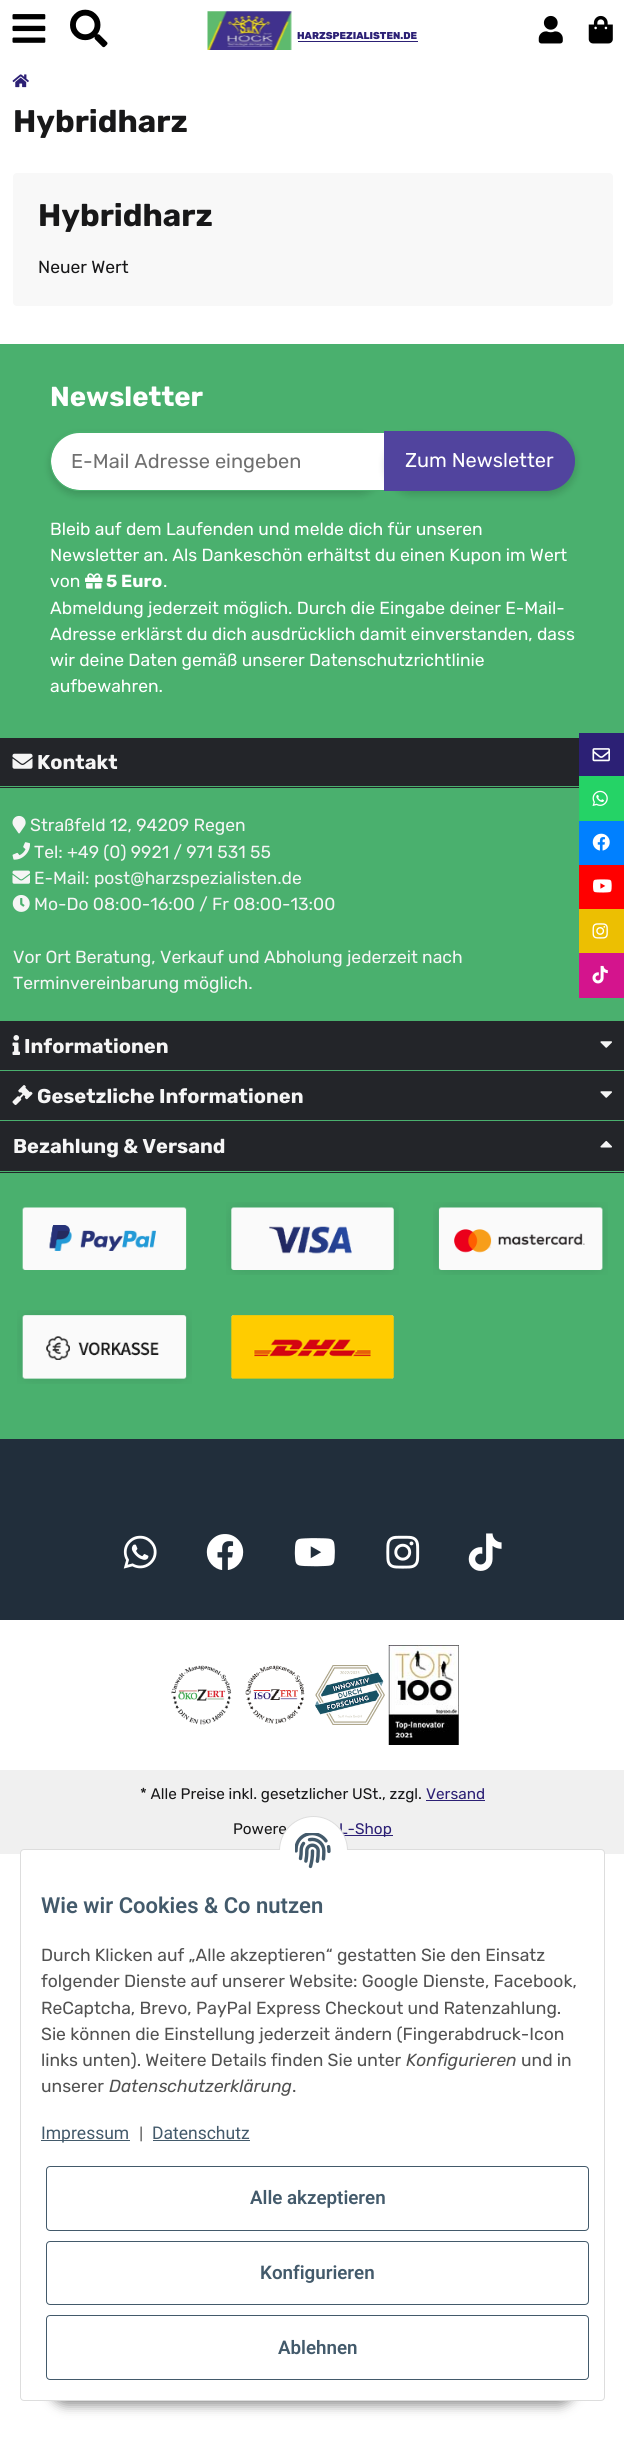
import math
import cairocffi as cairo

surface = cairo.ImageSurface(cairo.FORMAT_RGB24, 624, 2441)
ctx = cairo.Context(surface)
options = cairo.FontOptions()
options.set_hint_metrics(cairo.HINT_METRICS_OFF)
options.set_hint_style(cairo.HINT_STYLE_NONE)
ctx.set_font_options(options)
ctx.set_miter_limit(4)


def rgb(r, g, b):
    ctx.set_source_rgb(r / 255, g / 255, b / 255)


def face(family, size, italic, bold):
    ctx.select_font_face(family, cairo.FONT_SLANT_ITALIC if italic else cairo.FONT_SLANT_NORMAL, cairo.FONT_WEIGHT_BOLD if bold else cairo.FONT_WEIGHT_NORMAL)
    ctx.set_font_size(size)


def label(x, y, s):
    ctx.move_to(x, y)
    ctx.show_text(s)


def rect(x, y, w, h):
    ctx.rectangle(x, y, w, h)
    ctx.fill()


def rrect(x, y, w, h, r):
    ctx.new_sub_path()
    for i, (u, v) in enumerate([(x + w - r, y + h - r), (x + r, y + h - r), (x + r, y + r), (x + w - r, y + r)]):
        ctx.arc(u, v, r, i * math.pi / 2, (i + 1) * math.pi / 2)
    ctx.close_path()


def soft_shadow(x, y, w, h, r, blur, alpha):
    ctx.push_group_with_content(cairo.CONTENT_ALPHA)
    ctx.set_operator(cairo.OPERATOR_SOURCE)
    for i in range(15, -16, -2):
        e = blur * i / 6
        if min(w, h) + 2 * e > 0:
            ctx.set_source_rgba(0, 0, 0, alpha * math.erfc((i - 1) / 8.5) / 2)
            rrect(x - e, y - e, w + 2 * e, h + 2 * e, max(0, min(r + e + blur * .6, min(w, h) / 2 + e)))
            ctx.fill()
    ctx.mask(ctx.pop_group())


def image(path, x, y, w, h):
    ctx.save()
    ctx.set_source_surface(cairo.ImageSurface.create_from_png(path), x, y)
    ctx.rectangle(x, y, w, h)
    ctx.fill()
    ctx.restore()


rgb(255, 255, 255)
ctx.paint()
image('image0.png', 12, 14, 34, 29)
image('image1.png', 70, 9, 38, 39)
image('image2.png', 207, 11, 85, 39)
face('Rubik ExtraBold', 10, 0, 0)
rgb(44, 32, 117)
label(297, 39, 'HARZSPEZIALISTEN.DE')
rect(298, 41, 120, 1)
image('image3.png', 538, 15, 25, 29)
image('image4.png', 588, 15, 25, 29)
image('image5.png', 12, 74, 17, 14)
face('Rubik', 31.25, 0, 1)
rgb(24, 24, 25)
label(13, 132, 'Hybridharz')
rgb(248, 248, 248)
rrect(13, 173, 600, 133, 4)
ctx.fill()
rgb(24, 24, 25)
label(38, 226, 'Hybridharz')
face('Rubik', 17.5, 0, 0)
label(38, 273, 'Neuer Wert')
rgb(74, 176, 110)
rect(0, 344, 624, 394)
face('Rubik', 27.5, 0, 1)
rgb(255, 255, 255)
label(50, 406, 'Newsletter')
ctx.save()
ctx.set_fill_rule(cairo.FILL_RULE_EVEN_ODD)
ctx.new_path()
ctx.move_to(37, 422)
ctx.line_to(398, 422)
ctx.line_to(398, 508)
ctx.line_to(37, 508)
ctx.close_path()
ctx.move_to(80, 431)
ctx.line_to(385, 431)
ctx.line_to(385, 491)
ctx.line_to(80, 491)
ctx.curve_to(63.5, 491, 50, 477.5, 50, 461)
ctx.curve_to(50, 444.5, 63.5, 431, 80, 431)
ctx.close_path()
ctx.clip()
rgb(0, 0, 0)
soft_shadow(50, 435, 335, 60, 30, 4, 0.16)
ctx.restore()
ctx.new_path()
ctx.move_to(79.5, 433)
ctx.line_to(384, 433)
ctx.line_to(384, 490)
ctx.line_to(79.5, 490)
ctx.curve_to(64, 490, 51, 477, 51, 461.5)
ctx.curve_to(51, 446, 64, 433, 79.5, 433)
ctx.close_path()
ctx.fill()
ctx.new_path()
ctx.move_to(80, 431.5)
ctx.line_to(384.5, 431.5)
ctx.line_to(384.5, 490.5)
ctx.line_to(80, 490.5)
ctx.curve_to(63.5, 490.5, 50.5, 477.5, 50.5, 461)
ctx.curve_to(50.5, 444.5, 63.5, 431.5, 80, 431.5)
ctx.close_path()
rgb(74, 176, 110)
ctx.set_line_width(1)
ctx.stroke()
face('Rubik', 20, 0, 0)
rgb(112, 112, 112)
label(71, 468, 'E-Mail Adresse eingeben')
rgb(0, 0, 0)
soft_shadow(385, 435, 191, 60, 30, 4, 0.16)
rgb(81, 68, 158)
ctx.new_path()
ctx.move_to(384.5, 431.5)
ctx.line_to(545, 431.5)
ctx.curve_to(561.5, 431.5, 574.5, 444.5, 574.5, 461)
ctx.curve_to(574.5, 477.5, 561.5, 490.5, 545, 490.5)
ctx.line_to(384.5, 490.5)
ctx.close_path()
ctx.fill_preserve()
ctx.stroke()
rgb(255, 255, 255)
label(405, 467, 'Zum Newsletter')
face('Rubik', 17.5, 0, 0)
label(50, 535, 'Bleib auf dem Laufenden und melde dich für unseren')
label(50, 561, 'Newsletter an. Als Dankeschön erhältst du einen Kupon im Wert')
label(50, 587, 'von')
image('image6.png', 85, 573, 18, 16)
face('Rubik', 17.5, 0, 1)
label(106, 587, '5 Euro')
face('Rubik', 17.5, 0, 0)
label(163, 587, '.')
label(50, 614, 'Abmeldung jederzeit möglich. Durch die Eingabe deiner E-Mail-')
label(50, 640, 'Adresse erklärst du dich ausdrücklich damit einverstanden, dass')
label(50, 666, 'wir deine Daten gemäß unserer Datenschutzrichtlinie')
label(50, 692, 'aufbewahren.')
rgb(35, 37, 41)
rect(0, 738, 624, 435)
rgb(74, 176, 110)
rect(0, 786, 579, 1)
image('image7.png', 12, 753, 21, 16)
face('Rubik', 20, 0, 1)
rgb(245, 245, 245)
label(37, 769, 'Kontakt')
rgb(74, 176, 110)
rect(0, 788, 624, 233)
image('image8.png', 12, 815, 14, 19)
face('Rubik', 17.5, 0, 0)
rgb(245, 245, 245)
label(30, 831, 'Straßfeld 12, 94209 Regen')
image('image9.png', 12, 842, 18, 18)
label(34, 858, 'Tel: +49 (0) 9921 / 971 531 55')
image('image10.png', 12, 870, 18, 14)
label(34, 884, 'E-Mail: post@harzspezialisten.de')
image('image11.png', 12, 895, 18, 17)
label(34, 910, 'Mo-Do 08:00-16:00 / Fr 08:00-13:00')
label(13, 963, 'Vor Ort Beratung, Verkauf und Abholung jederzeit nach')
label(13, 989, 'Terminvereinbarung möglich.')
rgb(74, 176, 110)
rect(0, 1070, 624, 1)
image('image12.png', 12, 1035, 8, 20)
face('Rubik', 20, 0, 1)
rgb(245, 245, 245)
label(24, 1053, 'Informationen')
image('image13.png', 600, 1041, 12, 7)
rgb(74, 176, 110)
rect(0, 1120, 624, 1)
image('image14.png', 12, 1085, 21, 20)
rgb(245, 245, 245)
label(37, 1103, 'Gesetzliche Informationen')
image('image13.png', 600, 1091, 12, 7)
rgb(74, 176, 110)
rect(0, 1171, 624, 1)
rgb(245, 245, 245)
label(13, 1153, 'Bezahlung & Versand')
image('image15.png', 600, 1140, 12, 8)
rgb(74, 176, 110)
rect(0, 1173, 624, 266)
image('image16.png', 22, 1207, 165, 63)
image('image17.png', 226, 1202, 173, 73)
image('image18.png', 433, 1202, 175, 73)
image('image19.png', 17, 1310, 175, 74)
image('image20.png', 231, 1315, 163, 64)
rgb(44, 32, 117)
rect(579, 733, 45, 43)
image('image21.png', 592, 748, 18, 14)
rgb(37, 211, 102)
rect(579, 776, 45, 45)
image('image22.png', 592, 790, 16, 16)
rgb(0, 128, 255)
rect(579, 821, 45, 44)
image('image23.png', 592, 833, 18, 18)
rgb(255, 0, 0)
rect(579, 865, 45, 44)
image('image24.png', 593, 879, 19, 14)
rgb(236, 191, 2)
rect(579, 909, 45, 44)
image('image25.png', 592, 923, 16, 16)
rgb(212, 20, 141)
rect(579, 953, 45, 45)
image('image26.png', 592, 965, 16, 19)
rgb(33, 46, 59)
rect(0, 1439, 624, 181)
image('image27.png', 123, 1535, 34, 34)
image('image28.png', 206, 1534, 38, 36)
image('image29.png', 294, 1538, 41, 29)
image('image30.png', 386, 1535, 34, 34)
image('image31.png', 468, 1533, 34, 38)
image('image32.png', 171, 1665, 61, 60)
image('image33.png', 245, 1665, 60, 59)
image('image34.png', 315, 1665, 70, 60)
image('image35.png', 388, 1645, 71, 100)
rgb(240, 240, 240)
rect(0, 1770, 624, 84)
face('Rubik', 15.3, 0, 0)
rgb(24, 24, 25)
label(140, 1799, '* Alle Preise inkl. gesetzlicher USt., zzgl.')
rgb(44, 32, 117)
label(426, 1799, 'Versand')
rect(426, 1800, 59, 1)
rgb(24, 24, 25)
label(233, 1834, 'Powere')
rgb(44, 32, 117)
rect(344, 1835, 49, 1)
label(339, 1834, 'L-Shop')
rgb(0, 0, 0)
soft_shadow(50, 2365, 525, 40, 20, 6, 0.45)
rgb(255, 255, 255)
rrect(20.5, 1849.5, 584, 551, 3.5)
ctx.fill_preserve()
rgb(221, 221, 221)
ctx.stroke()
rgb(255, 255, 255)
ctx.arc(313.5, 1850.5, 34, 0, 2 * math.pi)
ctx.fill_preserve()
rgb(221, 221, 221)
ctx.stroke()
rgb(255, 255, 255)
rect(279, 1850, 69, 35)
image('image36.png', 295, 1833, 36, 36)
face('Roboto SemiBold', 22, 0, 0)
rgb(67, 90, 107)
label(41, 1913, 'Wie wir Cookies & Co nutzen')
face('Rubik', 17.5, 0, 0)
rgb(82, 82, 82)
label(41, 1961, 'Durch Klicken auf „Alle akzeptieren“ gestatten Sie den Einsatz')
label(41, 1987, 'folgender Dienste auf unserer Website: Google Dienste, Facebook,')
label(41, 2014, 'ReCaptcha, Brevo, PayPal Express Checkout und Ratenzahlung.')
label(41, 2040, 'Sie können die Einstellung jederzeit ändern (Fingerabdruck-Icon')
label(41, 2066, 'links unten). Weitere Details finden Sie unter')
face('Rubik', 17.5, 1, 0)
label(406, 2066, 'Konfigurieren')
face('Rubik', 17.5, 0, 0)
label(521, 2066, 'und in')
label(41, 2092, 'unserer')
face('Rubik', 17.5, 1, 0)
label(109, 2092, 'Datenschutzerklärung')
face('Rubik', 17.5, 0, 0)
label(292, 2092, '.')
rgb(67, 90, 107)
rect(41, 2140, 89, 1)
face('Roboto', 17.5, 0, 0)
label(41, 2139, 'Impressum')
rgb(82, 82, 82)
label(139, 2139, '|')
rgb(67, 90, 107)
label(152, 2139, 'Datenschutz')
rect(153, 2140, 97, 1)
rrect(46.5, 2166.5, 542, 64, 3.5)
ctx.stroke()
face('Roboto SemiBold', 18.75, 0, 0)
label(250, 2204, 'Alle akzeptieren')
rrect(46.5, 2241.5, 542, 63, 3.5)
ctx.stroke()
label(260, 2279, 'Konfigurieren')
rrect(46.5, 2315.5, 542, 64, 3.5)
ctx.stroke()
label(278, 2354, 'Ablehnen')
surface.write_to_png('render.png')
